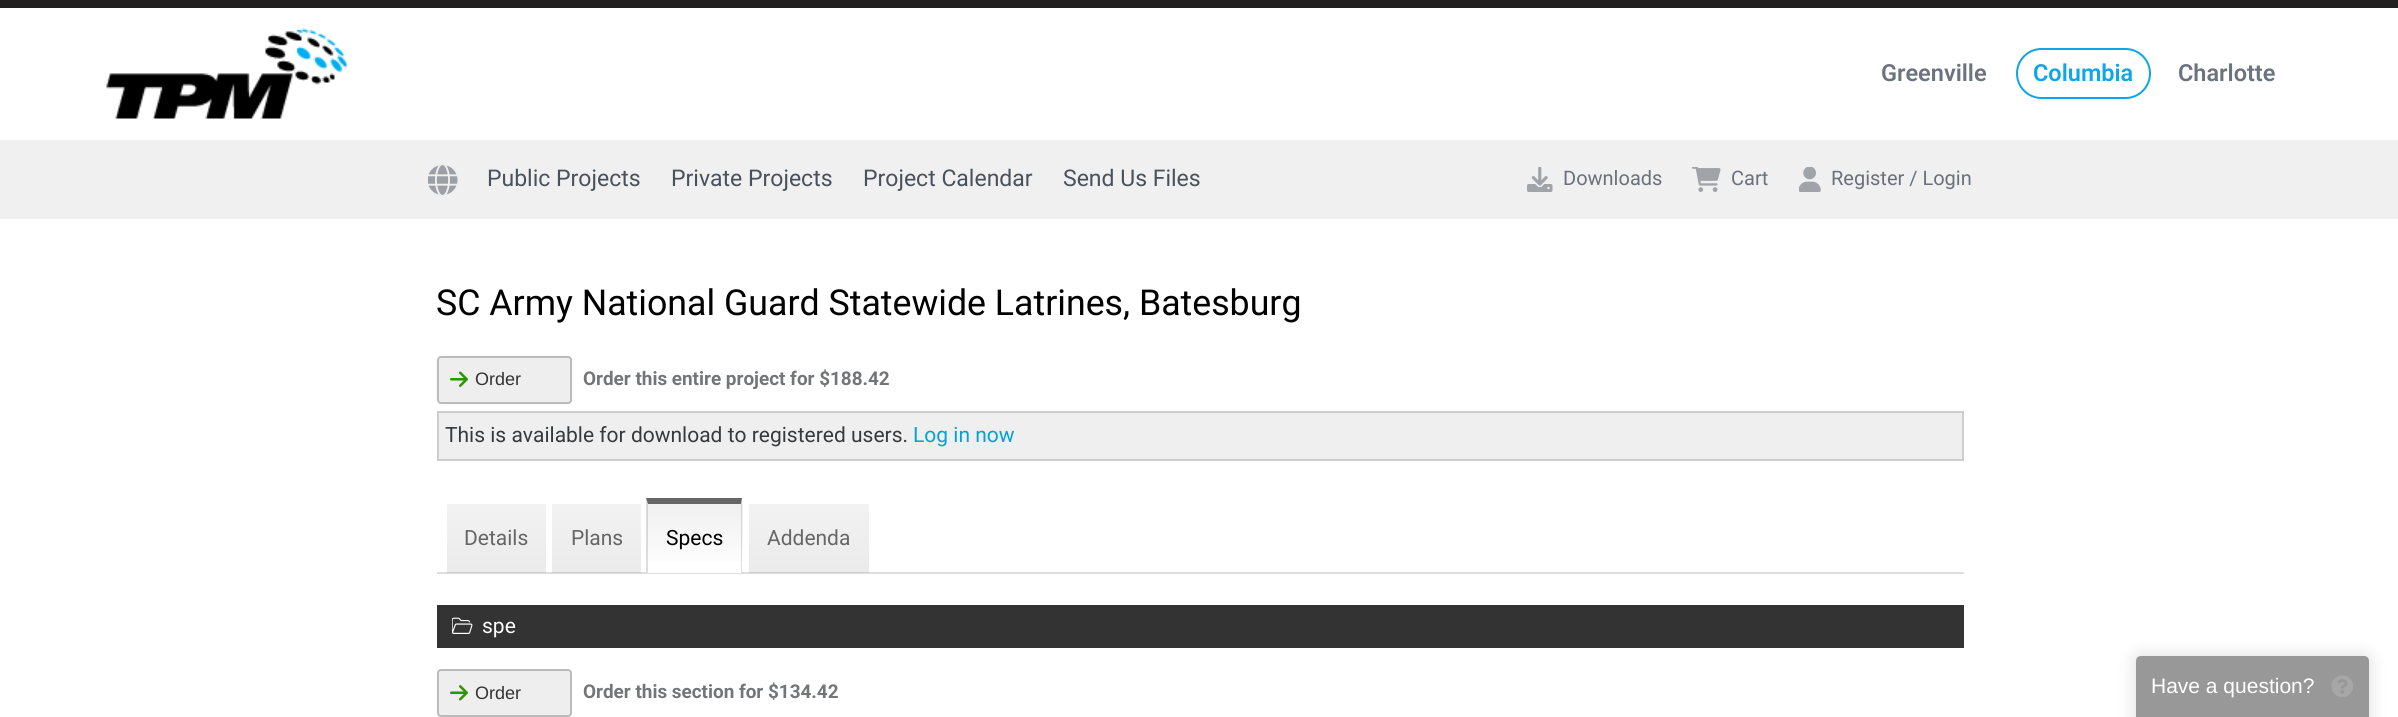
import math
import cairocffi as cairo

surface = cairo.ImageSurface(cairo.FORMAT_RGB24, 2398, 717)
ctx = cairo.Context(surface)
options = cairo.FontOptions()
options.set_hint_metrics(cairo.HINT_METRICS_OFF)
options.set_hint_style(cairo.HINT_STYLE_NONE)
ctx.set_font_options(options)
ctx.set_miter_limit(4)


def rgb(r, g, b):
    ctx.set_source_rgb(r / 255, g / 255, b / 255)


def face(family, size, italic, bold):
    ctx.select_font_face(family, cairo.FONT_SLANT_ITALIC if italic else cairo.FONT_SLANT_NORMAL, cairo.FONT_WEIGHT_BOLD if bold else cairo.FONT_WEIGHT_NORMAL)
    ctx.set_font_size(size)


def label(x, y, s):
    ctx.move_to(x, y)
    ctx.show_text(s)


def rect(x, y, w, h):
    ctx.rectangle(x, y, w, h)
    ctx.fill()


def rrect(x, y, w, h, r):
    ctx.new_sub_path()
    for i, (u, v) in enumerate([(x + w - r, y + h - r), (x + r, y + h - r), (x + r, y + r), (x + w - r, y + r)]):
        ctx.arc(u, v, r, i * math.pi / 2, (i + 1) * math.pi / 2)
    ctx.close_path()


def soft_shadow(x, y, w, h, r, blur, alpha):
    ctx.push_group_with_content(cairo.CONTENT_ALPHA)
    ctx.set_operator(cairo.OPERATOR_SOURCE)
    for i in range(15, -16, -2):
        e = blur * i / 6
        if min(w, h) + 2 * e > 0:
            ctx.set_source_rgba(0, 0, 0, alpha * math.erfc((i - 1) / 8.5) / 2)
            rrect(x - e, y - e, w + 2 * e, h + 2 * e, max(0, min(r + e + blur * .6, min(w, h) / 2 + e)))
            ctx.fill()
    ctx.mask(ctx.pop_group())


def image(path, x, y, w, h):
    ctx.save()
    ctx.set_source_surface(cairo.ImageSurface.create_from_png(path), x, y)
    ctx.rectangle(x, y, w, h)
    ctx.fill()
    ctx.restore()


rgb(255, 255, 255)
ctx.paint()
rgb(35, 31, 32)
rect(0, 0, 2398, 8)
image('image0.png', 106, 28, 241, 91)
face('Roboto SemiBold', 23.5, 0, 0)
rgb(107, 114, 128)
label(1881, 81, 'Greenville')
rrect(2017, 49, 133, 49, 24.5)
rgb(14, 165, 233)
ctx.stroke()
label(2033, 81, 'Columbia')
rgb(107, 114, 128)
label(2178, 81, 'Charlotte')
rgb(240, 240, 240)
rect(0, 140, 2398, 79)
image('image1.png', 428, 165, 30, 30)
face('Roboto', 23, 0, 0)
rgb(73, 81, 92)
label(487, 186, 'Public Projects')
label(671, 186, 'Private Projects')
label(863, 186, 'Project Calendar')
label(1063, 186, 'Send Us Files')
image('image2.png', 1527, 167, 26, 25)
face('Roboto', 20, 0, 0)
rgb(106, 113, 122)
label(1563, 185, 'Downloads')
image('image3.png', 1692, 167, 29, 25)
label(1731, 185, 'Cart')
image('image4.png', 1799, 167, 22, 25)
label(1831, 185, 'Register / Login')
face('Roboto', 35.7, 0, 0)
rgb(0, 0, 0)
label(436, 315, 'SC Army National Guard Statewide Latrines, Batesburg')
rgb(0, 0, 0)
soft_shadow(437, 356, 135, 48, 4, 1.5, 0.05)
rgb(238, 238, 238)
rrect(438, 357, 133, 46, 3)
ctx.fill_preserve()
rgb(187, 187, 187)
ctx.stroke()
image('image5.png', 450, 371, 18, 16)
face('Liberation Sans', 18, 0, 0)
rgb(51, 51, 51)
label(475, 385, 'Order')
face('Roboto', 18.9, 0, 1)
rgb(115, 117, 119)
label(583, 385, 'Order this entire project for $188.42')
rgb(239, 239, 239)
ctx.rectangle(438, 412, 1525, 48)
ctx.fill_preserve()
rgb(206, 206, 206)
ctx.stroke()
face('Roboto', 21, 0, 0)
rgb(55, 58, 60)
label(445, 442, 'This is available for download to registered users.')
rgb(0, 165, 213)
label(913, 442, 'Log in now')
rgb(222, 222, 222)
rect(437, 572, 1527, 2)
gradient = cairo.LinearGradient(497, 504, 497, 573)
gradient.add_color_stop_rgba(0, 0, 0, 0, 0.05)
gradient.add_color_stop_rgba(1, 0, 0, 0, 0.08)
ctx.set_source(gradient)
rect(447, 504, 99, 69)
rgb(102, 102, 102)
label(464, 545, 'Details')
gradient = cairo.LinearGradient(596, 504, 596, 573)
gradient.add_color_stop_rgba(0, 0, 0, 0, 0.05)
gradient.add_color_stop_rgba(1, 0, 0, 0, 0.08)
ctx.set_source(gradient)
rect(552, 504, 89, 69)
rgb(102, 102, 102)
label(571, 545, 'Plans')
gradient = cairo.LinearGradient(695, 504, 695, 572)
gradient.add_color_stop_rgba(0, 0.941, 0.941, 0.941, 1)
gradient.add_color_stop_rgba(1, 1, 1, 1, 1)
ctx.set_source(gradient)
rect(647, 504, 96, 57)
gradient = cairo.LinearGradient(695, 572, 695, 639)
gradient.add_color_stop_rgba(0, 0.82, 0.82, 0.82, 1)
gradient.add_color_stop_rgba(1, 0.871, 0.871, 0.871, 1)
ctx.set_source(gradient)
rect(647, 572, 96, 1)
rgb(102, 102, 102)
ctx.new_path()
ctx.move_to(646, 498)
ctx.line_to(742, 498)
ctx.line_to(741, 504)
ctx.line_to(648, 504)
ctx.close_path()
ctx.fill()
ctx.set_source_rgba(0, 0, 0, 0.13)
ctx.new_path()
ctx.move_to(742, 498)
ctx.line_to(742, 573)
ctx.line_to(741, 572)
ctx.line_to(741, 504)
ctx.close_path()
ctx.fill()
rgb(255, 255, 255)
ctx.new_path()
ctx.move_to(742, 573)
ctx.line_to(646, 573)
ctx.line_to(648, 572)
ctx.line_to(741, 572)
ctx.close_path()
ctx.fill()
ctx.set_source_rgba(0, 0, 0, 0.13)
ctx.new_path()
ctx.move_to(646, 573)
ctx.line_to(646, 498)
ctx.line_to(648, 504)
ctx.line_to(648, 572)
ctx.close_path()
ctx.fill()
rgb(0, 0, 0)
label(666, 545, 'Specs')
gradient = cairo.LinearGradient(809, 504, 809, 573)
gradient.add_color_stop_rgba(0, 0, 0, 0, 0.05)
gradient.add_color_stop_rgba(1, 0, 0, 0, 0.08)
ctx.set_source(gradient)
rect(749, 504, 120, 69)
rgb(102, 102, 102)
label(767, 545, 'Addenda')
rgb(51, 51, 51)
rect(437, 605, 1527, 43)
image('image6.png', 452, 617, 21, 17)
rgb(255, 255, 255)
label(482, 633, 'spe')
rgb(238, 238, 238)
rrect(438, 670, 133, 46, 3)
ctx.fill_preserve()
rgb(187, 187, 187)
ctx.stroke()
image('image7.png', 450, 685, 18, 16)
face('Liberation Sans', 18, 0, 0)
rgb(51, 51, 51)
label(475, 699, 'Order')
face('Roboto', 18.9, 0, 1)
rgb(115, 117, 119)
label(583, 698, 'Order this section for $134.42')
ctx.save()
ctx.set_fill_rule(cairo.FILL_RULE_EVEN_ODD)
ctx.new_path()
ctx.move_to(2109, 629)
ctx.line_to(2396, 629)
ctx.line_to(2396, 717)
ctx.line_to(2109, 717)
ctx.close_path()
ctx.move_to(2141, 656)
ctx.line_to(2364, 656)
ctx.curve_to(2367, 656, 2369, 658, 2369, 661)
ctx.line_to(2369, 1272)
ctx.line_to(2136, 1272)
ctx.line_to(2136, 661)
ctx.curve_to(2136, 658, 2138, 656, 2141, 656)
ctx.close_path()
ctx.clip()
rgb(0, 0, 0)
soft_shadow(2133, 653, 239, 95, 8, 7.5, 0.1)
ctx.restore()
ctx.set_source_rgba(0.2, 0.2, 0.2, 0.5)
ctx.new_path()
ctx.move_to(2141, 656)
ctx.line_to(2364, 656)
ctx.curve_to(2367, 656, 2369, 658, 2369, 661)
ctx.line_to(2369, 717)
ctx.line_to(2136, 717)
ctx.line_to(2136, 661)
ctx.curve_to(2136, 658, 2138, 656, 2141, 656)
ctx.close_path()
ctx.fill()
face('Liberation Sans', 21, 0, 0)
rgb(255, 255, 255)
label(2151, 693, 'Have a question?')
image('image8.png', 2331, 675, 22, 22)
surface.write_to_png('render.png')
